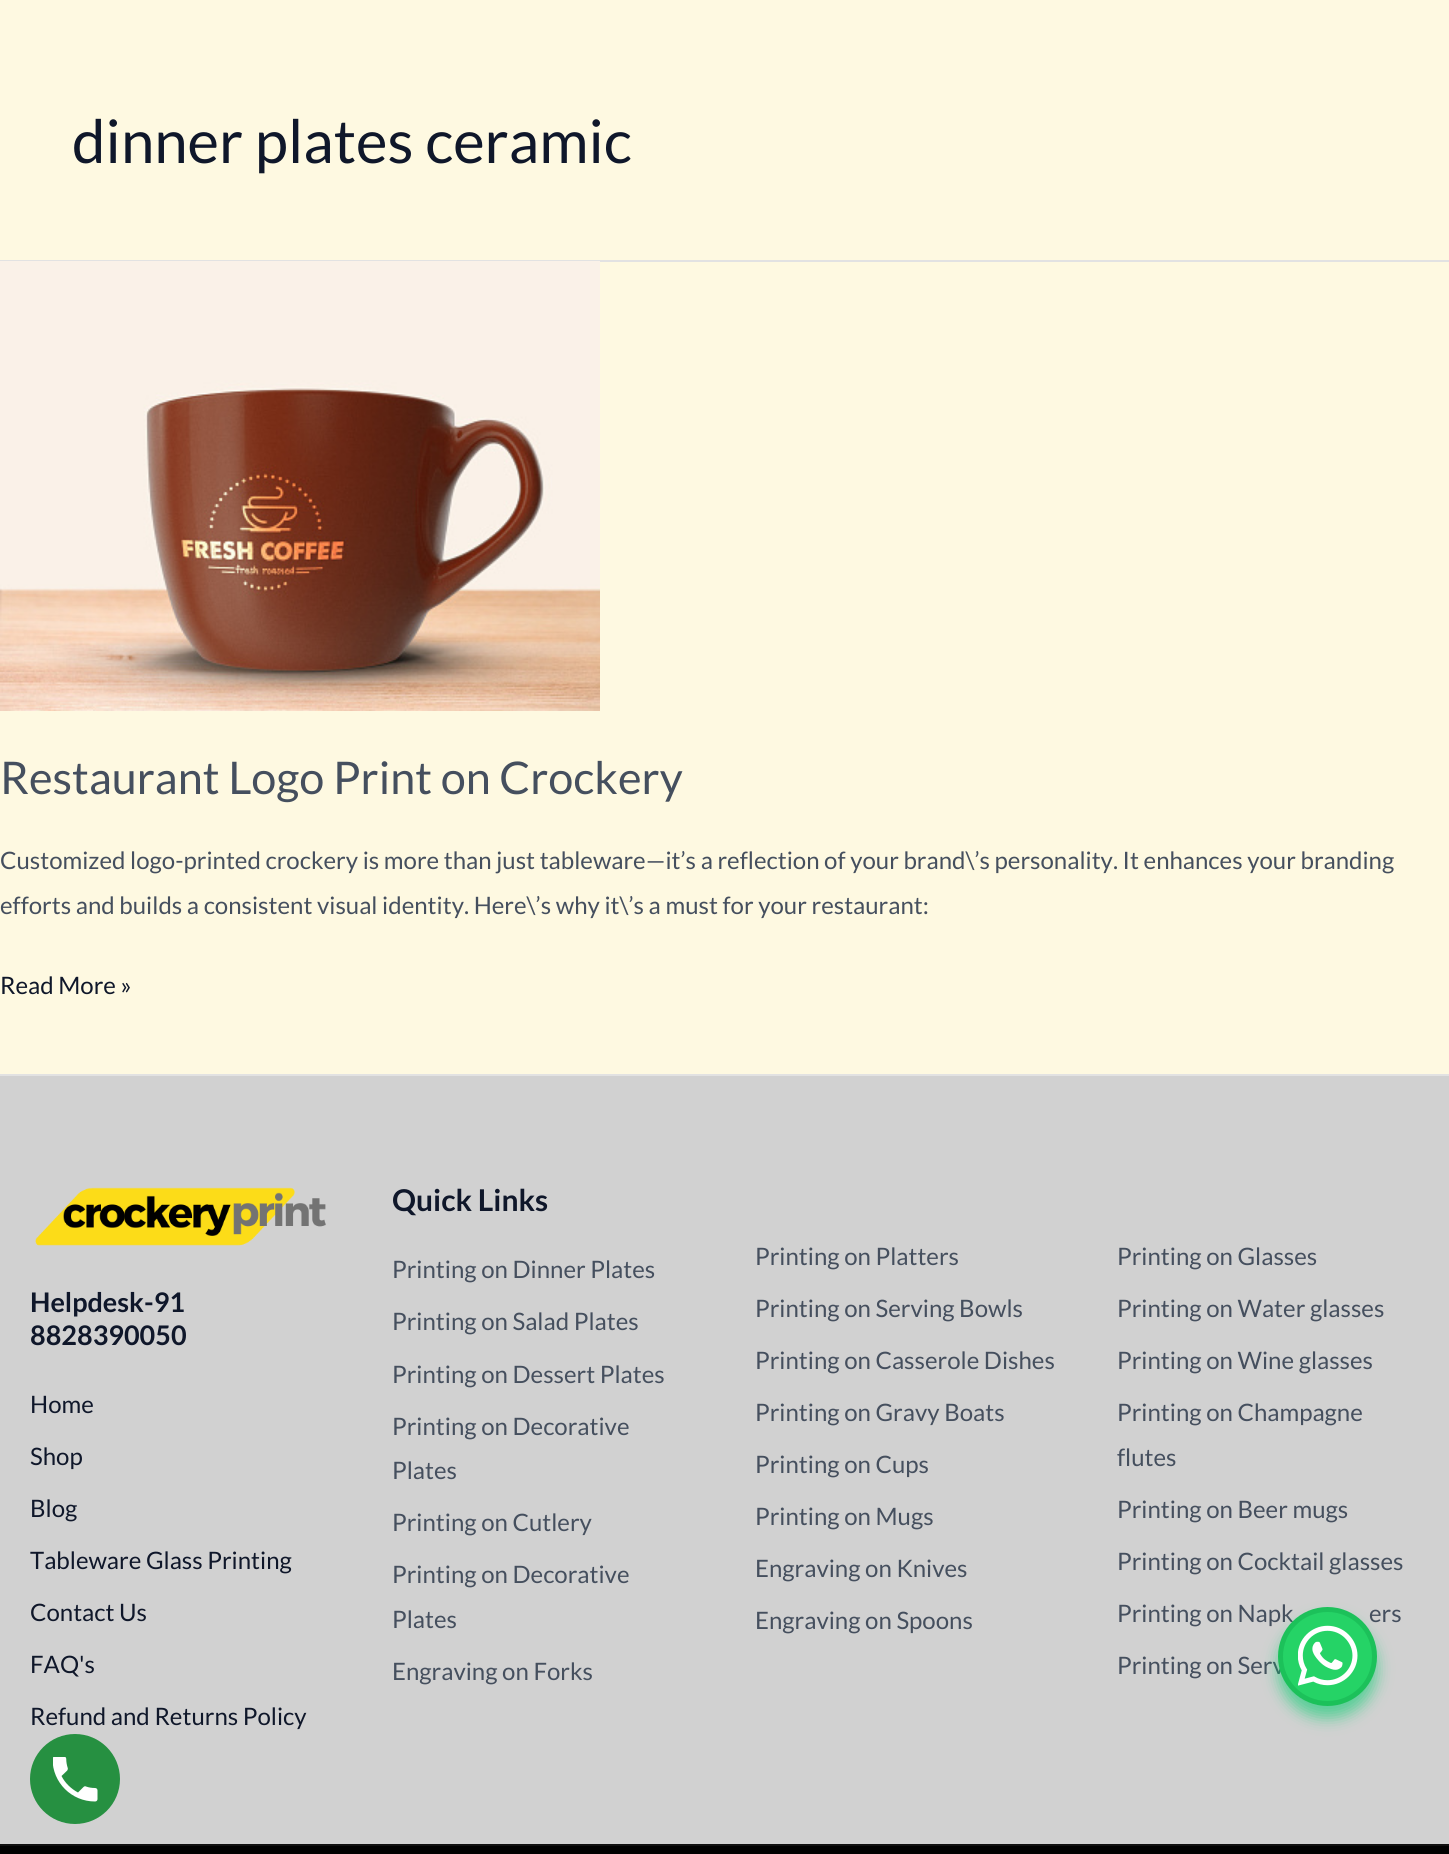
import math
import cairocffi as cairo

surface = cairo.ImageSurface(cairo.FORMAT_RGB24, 1449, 1854)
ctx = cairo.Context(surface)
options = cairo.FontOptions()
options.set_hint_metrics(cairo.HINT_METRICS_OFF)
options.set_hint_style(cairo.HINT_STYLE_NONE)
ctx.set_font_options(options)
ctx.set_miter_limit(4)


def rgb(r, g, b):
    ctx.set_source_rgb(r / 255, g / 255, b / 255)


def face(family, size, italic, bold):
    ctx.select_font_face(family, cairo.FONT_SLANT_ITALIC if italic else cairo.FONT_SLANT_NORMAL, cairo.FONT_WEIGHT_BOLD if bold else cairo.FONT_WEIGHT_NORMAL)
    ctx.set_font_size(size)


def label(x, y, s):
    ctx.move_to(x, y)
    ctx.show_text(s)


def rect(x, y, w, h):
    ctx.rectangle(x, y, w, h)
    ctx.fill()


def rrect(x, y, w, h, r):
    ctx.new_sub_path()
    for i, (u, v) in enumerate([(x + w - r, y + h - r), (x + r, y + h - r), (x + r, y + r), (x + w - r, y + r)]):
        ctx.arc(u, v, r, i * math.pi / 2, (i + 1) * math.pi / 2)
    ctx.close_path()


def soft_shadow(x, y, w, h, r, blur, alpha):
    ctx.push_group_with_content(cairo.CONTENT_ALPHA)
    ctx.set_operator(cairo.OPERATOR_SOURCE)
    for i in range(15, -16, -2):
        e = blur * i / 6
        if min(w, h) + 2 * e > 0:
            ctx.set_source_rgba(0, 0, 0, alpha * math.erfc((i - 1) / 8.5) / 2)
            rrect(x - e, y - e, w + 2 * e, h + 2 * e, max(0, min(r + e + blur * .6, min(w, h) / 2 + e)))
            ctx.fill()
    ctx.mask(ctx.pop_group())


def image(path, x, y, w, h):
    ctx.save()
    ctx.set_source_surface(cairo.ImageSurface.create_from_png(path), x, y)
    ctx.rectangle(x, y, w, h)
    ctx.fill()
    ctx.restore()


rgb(254, 249, 225)
ctx.paint()
rgb(226, 226, 226)
rect(0, 260, 1449, 2)
face('Lato', 60, 0, 0)
rgb(15, 23, 42)
label(72, 163, 'dinner plates ceramic')
rgb(226, 226, 226)
rect(0, 1074, 1449, 2)
image('image0.png', 0, 261, 600, 450)
face('Lato', 45, 0, 0)
rgb(69, 79, 94)
label(0, 794, 'Restaurant Logo Print on Crockery')
face('Lato', 24, 0, 0)
label(0, 869, 'Customized logo-printed crockery is more than just tableware—it’s a reflection of your brand\\’s personality. It enhances your branding')
label(0, 914, 'efforts and builds a consistent visual identity. Here\\’s why it\\’s a must for your restaurant:')
rgb(15, 23, 42)
label(0, 994, 'Read More »')
rgb(209, 209, 209)
rect(0, 1076, 1449, 768)
image('image1.png', 35, 1187, 291, 59)
face('Lato', 27, 0, 1)
rgb(15, 23, 42)
label(30, 1312, 'Helpdesk-91')
label(30, 1345, '8828390050')
face('Lato', 24, 0, 0)
label(30, 1413, 'Home')
label(30, 1465, 'Shop')
label(30, 1517, 'Blog')
label(30, 1569, 'Tableware Glass Printing')
label(30, 1621, 'Contact Us')
label(30, 1673, 'FAQ\'s')
label(30, 1725, 'Refund and Returns Policy')
face('Lato', 30, 0, 1)
label(392, 1211, 'Quick Links')
face('Lato', 24, 0, 0)
rgb(69, 79, 94)
label(392, 1278, 'Printing on Dinner Plates')
label(392, 1330, 'Printing on Salad Plates')
label(392, 1383, 'Printing on Dessert Plates')
label(392, 1435, 'Printing on Decorative')
label(392, 1479, 'Plates')
label(392, 1531, 'Printing on Cutlery')
label(392, 1583, 'Printing on Decorative')
label(392, 1628, 'Plates')
label(392, 1680, 'Engraving on Forks')
label(755, 1265, 'Printing on Platters')
label(755, 1317, 'Printing on Serving Bowls')
label(755, 1369, 'Printing on Casserole Dishes')
label(755, 1421, 'Printing on Gravy Boats')
label(755, 1473, 'Printing on Cups')
label(755, 1525, 'Printing on Mugs')
label(755, 1577, 'Engraving on Knives')
label(755, 1629, 'Engraving on Spoons')
label(1117, 1265, 'Printing on Glasses')
label(1117, 1317, 'Printing on Water glasses')
label(1117, 1369, 'Printing on Wine glasses')
label(1117, 1421, 'Printing on Champagne')
label(1117, 1466, 'flutes')
label(1117, 1518, 'Printing on Beer mugs')
label(1117, 1570, 'Printing on Cocktail glasses')
label(1117, 1622, 'Printing on Napk')
label(1369, 1622, 'ers')
label(1117, 1674, 'Printing on Serv')
rgb(0, 0, 0)
rect(0, 1846, 1449, 8)
rgb(16, 16, 16)
rect(0, 1844, 1449, 2)
rgb(7, 206, 112)
soft_shadow(1278, 1619, 99, 99, 49.5, 7.5, 0.6)
rgb(37, 211, 102)
ctx.arc(1327.5, 1656.5, 47, 0, 2 * math.pi)
ctx.fill_preserve()
rgb(28, 193, 90)
ctx.set_line_width(5)
ctx.stroke()
image('image2.png', 1298, 1625, 60, 61)
rgb(38, 144, 65)
ctx.arc(75, 1779, 45, 0, 2 * math.pi)
ctx.fill()
image('image3.png', 53, 1757, 45, 45)
surface.write_to_png('render.png')
